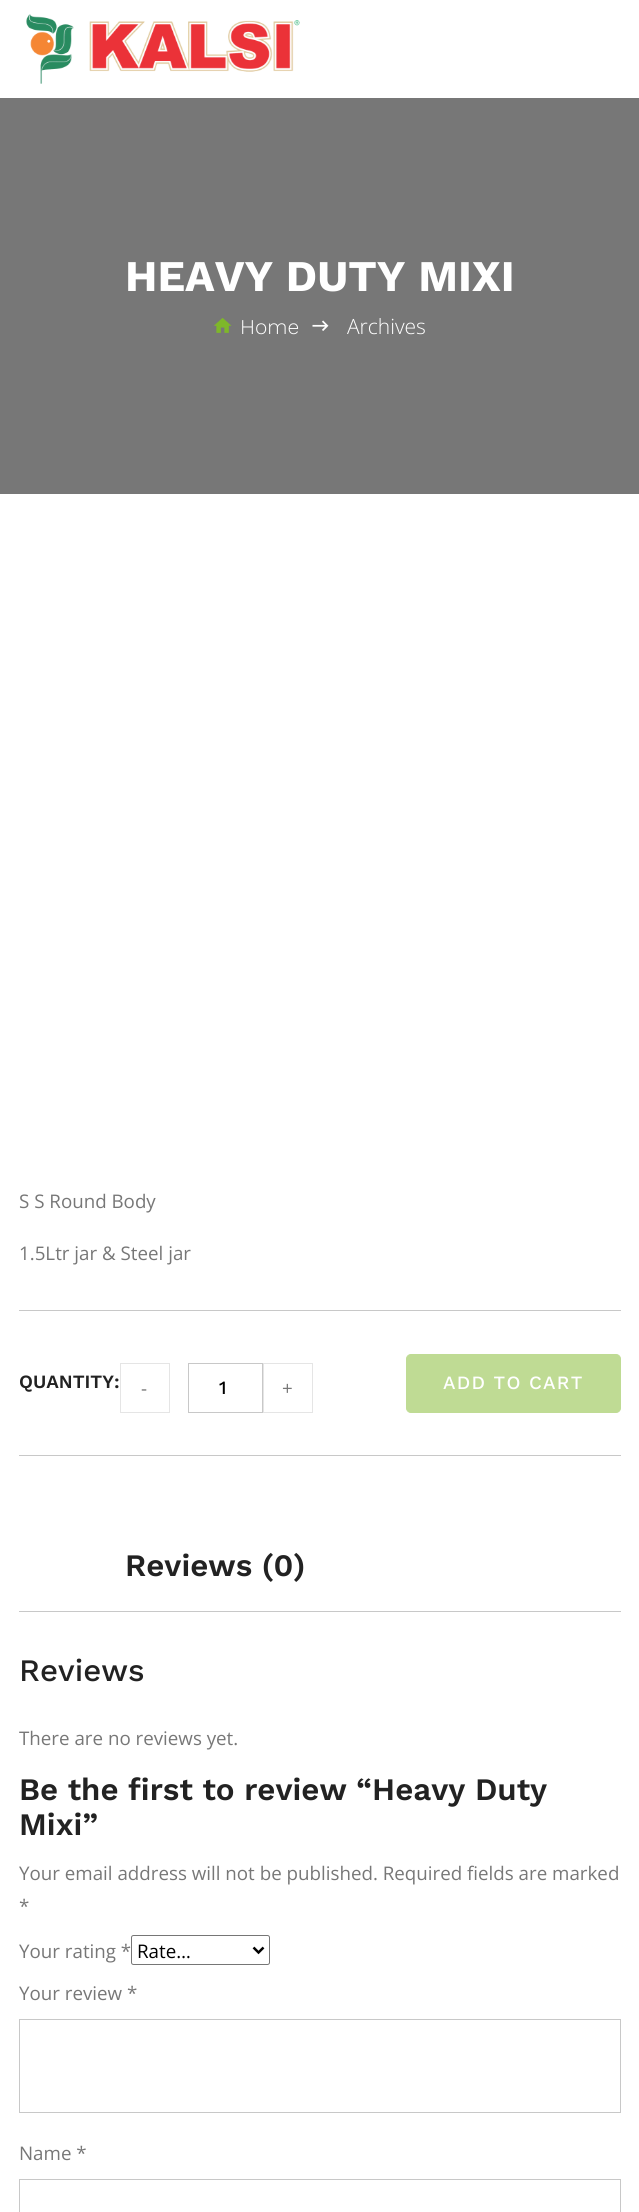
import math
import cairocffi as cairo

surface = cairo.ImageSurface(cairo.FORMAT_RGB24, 639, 2212)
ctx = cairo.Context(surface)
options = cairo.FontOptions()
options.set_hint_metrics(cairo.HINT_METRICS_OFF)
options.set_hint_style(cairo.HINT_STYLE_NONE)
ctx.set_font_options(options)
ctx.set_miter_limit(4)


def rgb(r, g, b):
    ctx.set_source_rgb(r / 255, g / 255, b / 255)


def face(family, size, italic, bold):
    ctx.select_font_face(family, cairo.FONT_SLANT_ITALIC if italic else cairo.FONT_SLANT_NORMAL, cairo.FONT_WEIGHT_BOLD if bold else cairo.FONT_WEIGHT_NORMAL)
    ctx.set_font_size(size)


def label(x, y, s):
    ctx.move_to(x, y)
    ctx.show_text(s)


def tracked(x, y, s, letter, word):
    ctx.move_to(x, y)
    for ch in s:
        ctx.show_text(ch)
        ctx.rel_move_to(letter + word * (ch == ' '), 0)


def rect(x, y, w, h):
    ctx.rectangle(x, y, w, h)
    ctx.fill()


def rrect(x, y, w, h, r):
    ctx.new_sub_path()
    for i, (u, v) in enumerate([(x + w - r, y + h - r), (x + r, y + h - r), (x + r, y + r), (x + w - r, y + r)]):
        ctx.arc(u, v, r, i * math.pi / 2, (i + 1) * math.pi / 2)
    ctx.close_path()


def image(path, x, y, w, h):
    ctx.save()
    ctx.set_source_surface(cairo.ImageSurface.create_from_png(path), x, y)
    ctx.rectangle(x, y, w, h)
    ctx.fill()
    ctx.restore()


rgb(255, 255, 255)
ctx.paint()
image('image0.png', 26, 14, 274, 70)
rgb(119, 119, 119)
rect(0, 98, 639, 396)
face('Work Sans', 43.75, 0, 1)
rgb(255, 255, 255)
label(125, 291, 'HEAVY DUTY MIXI')
image('image1.png', 214, 318, 18, 15)
face('Work Sans Light', 21, 0, 0)
label(240, 334, 'Home')
image('image2.png', 312, 320, 17, 11)
face('Open Sans Light', 21, 0, 0)
label(347, 334, 'Archives')
face('Open Sans', 18.75, 0, 0)
rgb(119, 119, 119)
label(19, 1208, 'S S Round Body')
label(19, 1260, '1.5Ltr jar & Steel jar')
rgb(200, 200, 200)
rect(19, 1310, 602, 1)
rect(19, 1455, 602, 1)
face('Work Sans SemiBold', 18.75, 0, 0)
rgb(34, 34, 34)
label(19, 1388, 'QUANTITY:')
ctx.rectangle(120.5, 1363.5, 49, 49)
rgb(229, 229, 229)
ctx.set_line_width(1)
ctx.stroke()
face('Open Sans', 18.75, 0, 0)
rgb(119, 119, 119)
label(141, 1395, '-')
ctx.rectangle(188.5, 1363.5, 74, 49)
rgb(200, 200, 200)
ctx.stroke()
face('Work Sans Medium', 18.75, 0, 0)
rgb(0, 0, 0)
label(219, 1394, '1')
ctx.rectangle(263.5, 1363.5, 49, 49)
rgb(229, 229, 229)
ctx.stroke()
face('Open Sans', 18.75, 0, 0)
rgb(119, 119, 119)
label(282, 1395, '+')
rgb(191, 219, 148)
rrect(406.5, 1354.5, 214, 58, 4.5)
ctx.fill_preserve()
ctx.stroke()
face('Work Sans Medium', 18.75, 0, 0)
rgb(255, 255, 255)
tracked(443, 1389, 'ADD TO CART', 1.25, 0)
face('Work Sans SemiBold', 31.25, 0, 0)
rgb(34, 34, 34)
label(125, 1576, 'Reviews (0)')
rgb(200, 200, 200)
rect(19, 1611, 602, 1)
face('Work Sans Medium', 31.25, 0, 0)
rgb(34, 34, 34)
label(19, 1681, 'Reviews')
face('Open Sans', 18.75, 0, 0)
rgb(119, 119, 119)
label(19, 1745, 'There are no reviews yet.')
face('Work Sans SemiBold', 31.25, 0, 0)
rgb(34, 34, 34)
label(19, 1800, 'Be the first to review “Heavy Duty')
label(19, 1835, 'Mixi”')
face('Open Sans', 18.75, 0, 0)
rgb(119, 119, 119)
label(19, 1880, 'Your email address will not be published. Required fields are marked')
label(19, 1913, '*')
label(19, 1958, 'Your rating *')
rrect(131.5, 1935.5, 138, 29, 2)
rgb(118, 118, 118)
ctx.stroke()
ctx.new_path()
ctx.move_to(253.5, 1947.5)
ctx.line_to(258.5, 1952.5)
ctx.line_to(263.5, 1947.5)
rgb(0, 0, 0)
ctx.set_line_width(2.5)
ctx.stroke()
label(137, 1958, 'Rate…')
rgb(119, 119, 119)
label(19, 2000, 'Your review *')
ctx.rectangle(19.5, 2019.5, 601, 93)
rgb(200, 200, 200)
ctx.set_line_width(1)
ctx.stroke()
rgb(119, 119, 119)
label(19, 2160, 'Name *')
ctx.rectangle(19.5, 2179.5, 601, 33)
rgb(200, 200, 200)
ctx.stroke()
surface.write_to_png('render.png')
